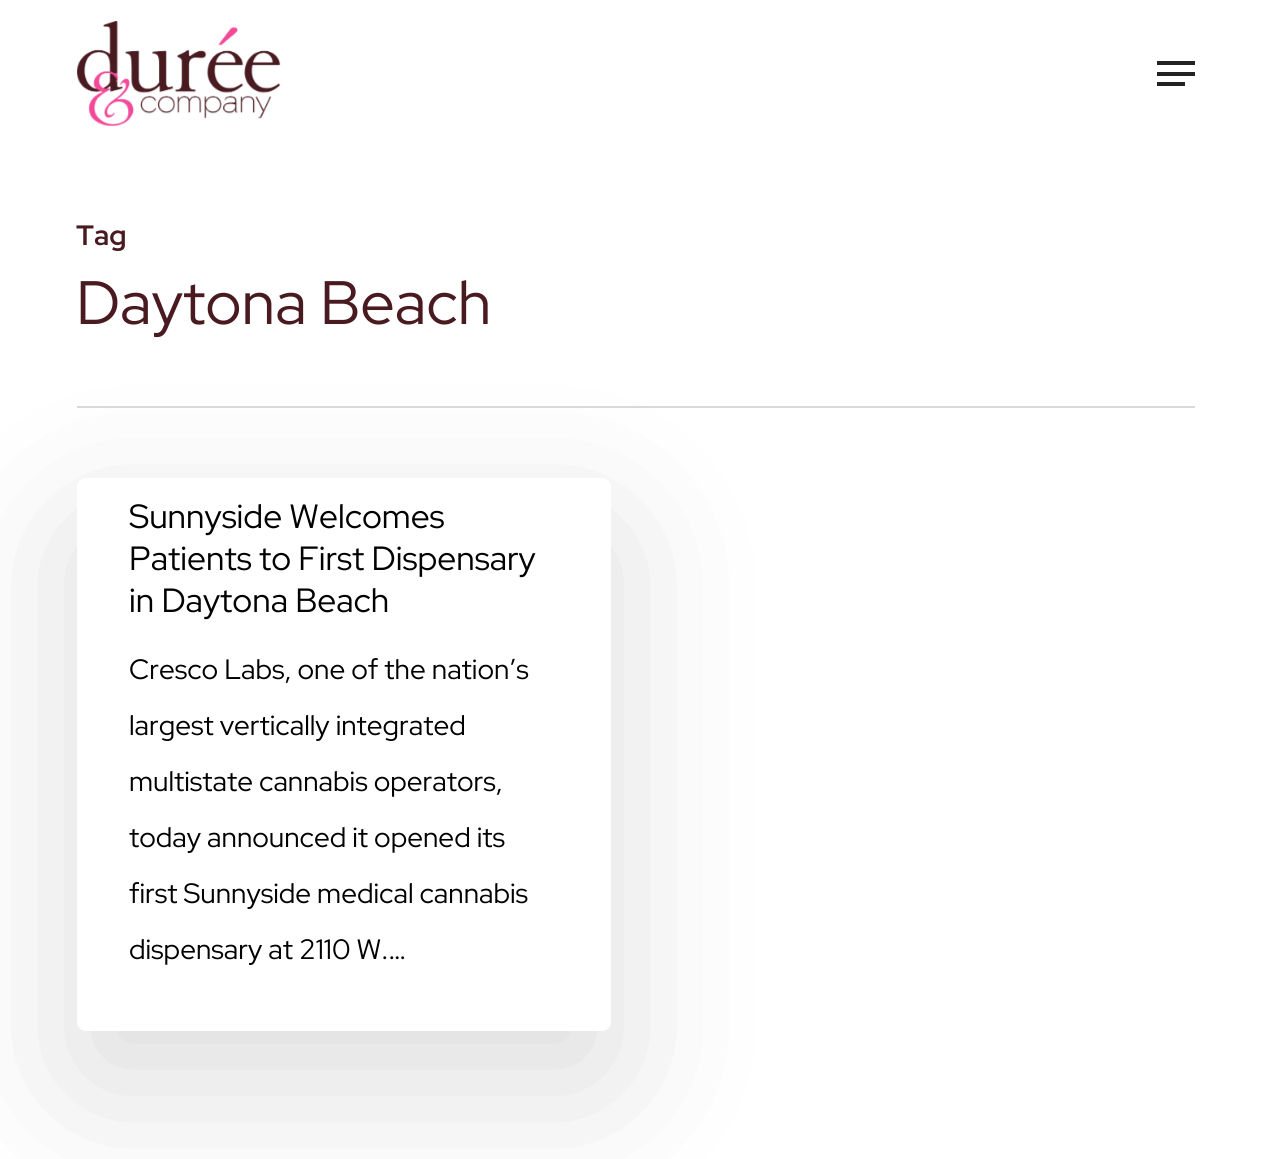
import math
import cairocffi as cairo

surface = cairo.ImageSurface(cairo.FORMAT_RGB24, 1271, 1159)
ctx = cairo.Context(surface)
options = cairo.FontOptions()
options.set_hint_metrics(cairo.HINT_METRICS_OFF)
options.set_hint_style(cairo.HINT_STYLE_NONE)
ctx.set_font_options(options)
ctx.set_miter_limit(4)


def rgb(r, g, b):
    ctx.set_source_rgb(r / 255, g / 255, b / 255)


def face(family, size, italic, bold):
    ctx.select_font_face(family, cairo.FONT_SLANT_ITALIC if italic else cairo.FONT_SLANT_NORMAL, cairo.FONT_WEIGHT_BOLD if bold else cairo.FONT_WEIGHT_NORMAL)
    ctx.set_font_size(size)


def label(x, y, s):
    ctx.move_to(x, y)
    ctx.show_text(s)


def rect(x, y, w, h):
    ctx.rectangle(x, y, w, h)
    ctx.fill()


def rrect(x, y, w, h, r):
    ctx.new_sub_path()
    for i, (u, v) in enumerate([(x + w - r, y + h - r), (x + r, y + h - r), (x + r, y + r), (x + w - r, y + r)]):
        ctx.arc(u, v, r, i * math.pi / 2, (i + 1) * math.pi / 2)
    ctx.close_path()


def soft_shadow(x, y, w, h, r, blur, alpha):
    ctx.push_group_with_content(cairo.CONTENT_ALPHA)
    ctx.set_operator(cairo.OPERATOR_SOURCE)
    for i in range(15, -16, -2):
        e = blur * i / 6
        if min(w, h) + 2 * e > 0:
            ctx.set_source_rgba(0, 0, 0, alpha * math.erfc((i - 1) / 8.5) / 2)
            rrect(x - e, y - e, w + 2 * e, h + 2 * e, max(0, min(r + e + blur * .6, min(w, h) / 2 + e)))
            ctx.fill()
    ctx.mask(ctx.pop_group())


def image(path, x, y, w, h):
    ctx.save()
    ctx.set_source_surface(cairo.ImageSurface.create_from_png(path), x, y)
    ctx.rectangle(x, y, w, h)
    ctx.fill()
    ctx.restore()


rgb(255, 255, 255)
ctx.paint()
image('image0.png', 77, 21, 204, 105)
rgb(34, 34, 34)
rect(1157, 61, 38, 4)
rect(1157, 82, 28, 4)
rect(1157, 72, 38, 4)
rgb(0, 0, 0)
soft_shadow(77, 530, 534, 553, 9, 79, 0.14)
rgb(217, 217, 217)
rect(77, 406, 1118, 2)
face('Red Hat Display', 28, 0, 1)
rgb(73, 27, 32)
label(76, 245, 'Tag')
face('Red Hat Display', 61.25, 0, 0)
label(76, 324, 'Daytona Beach')
rgb(255, 255, 255)
rrect(77, 478, 534, 553, 9)
ctx.fill()
face('Red Hat Display', 33.6, 0, 0)
rgb(0, 0, 0)
label(129, 528, 'Sunnyside Welcomes')
label(129, 570, 'Patients to First Dispensary')
label(129, 612, 'in Daytona Beach')
face('Red Hat Display', 28, 0, 0)
label(129, 679, 'Cresco Labs, one of the nation’s')
label(129, 735, 'largest vertically integrated')
label(129, 791, 'multistate cannabis operators,')
label(129, 847, 'today announced it opened its')
label(129, 903, 'first Sunnyside medical cannabis')
label(129, 959, 'dispensary at 2110 W.…')
surface.write_to_png('render.png')
